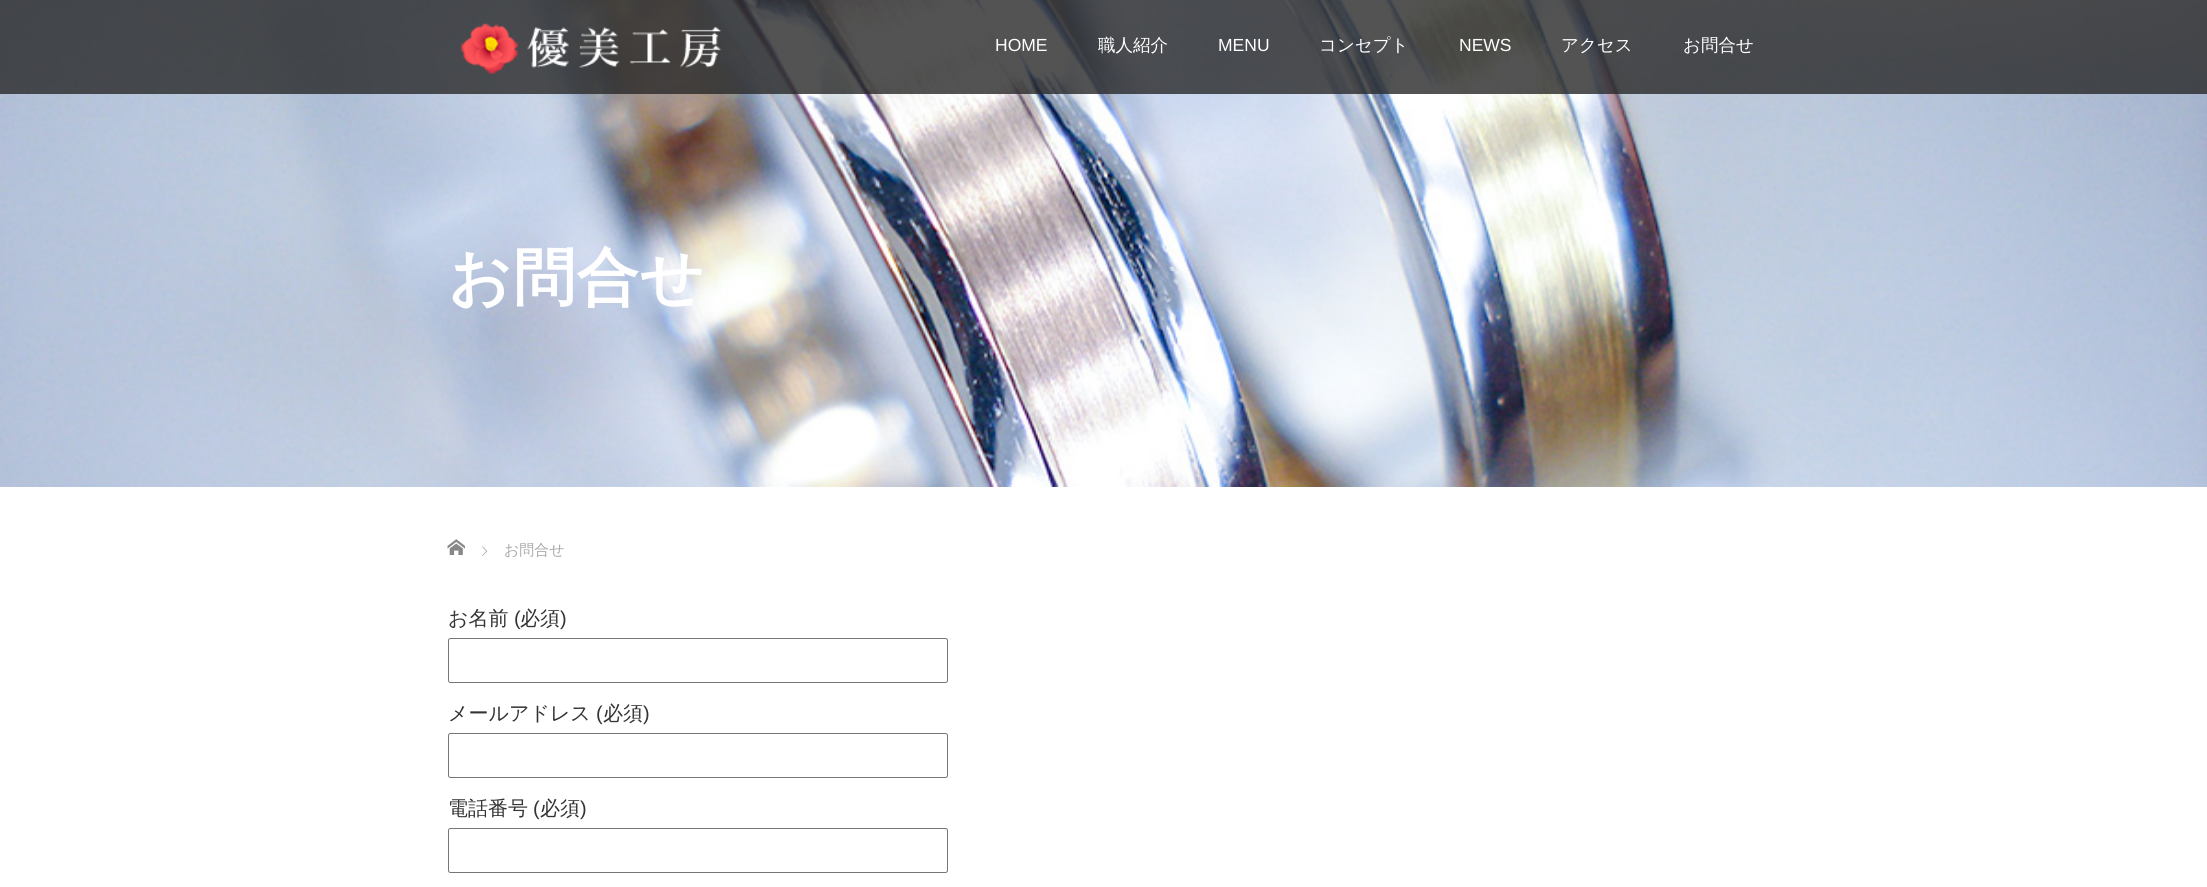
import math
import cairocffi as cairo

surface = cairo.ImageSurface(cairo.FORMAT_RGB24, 2207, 887)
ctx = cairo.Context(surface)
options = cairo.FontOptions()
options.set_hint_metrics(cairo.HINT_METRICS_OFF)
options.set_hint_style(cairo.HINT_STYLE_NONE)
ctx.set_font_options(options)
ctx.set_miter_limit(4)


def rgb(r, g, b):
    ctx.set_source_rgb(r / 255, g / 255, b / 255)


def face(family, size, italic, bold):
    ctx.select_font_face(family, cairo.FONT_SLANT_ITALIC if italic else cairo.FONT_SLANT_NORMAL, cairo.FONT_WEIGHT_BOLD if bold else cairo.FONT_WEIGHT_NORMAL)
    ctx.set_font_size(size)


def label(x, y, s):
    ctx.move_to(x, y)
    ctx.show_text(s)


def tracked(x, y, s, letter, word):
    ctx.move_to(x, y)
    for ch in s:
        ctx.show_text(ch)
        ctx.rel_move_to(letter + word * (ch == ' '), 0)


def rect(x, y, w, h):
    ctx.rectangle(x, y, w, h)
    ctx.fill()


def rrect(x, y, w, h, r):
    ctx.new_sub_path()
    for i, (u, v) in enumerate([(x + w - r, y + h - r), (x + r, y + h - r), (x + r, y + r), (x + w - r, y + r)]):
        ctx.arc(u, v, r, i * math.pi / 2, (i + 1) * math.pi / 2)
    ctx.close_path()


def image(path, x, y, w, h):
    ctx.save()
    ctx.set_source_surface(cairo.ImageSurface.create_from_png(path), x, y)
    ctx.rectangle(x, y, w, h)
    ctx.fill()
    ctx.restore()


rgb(255, 255, 255)
ctx.paint()
image('image0.png', 0, 0, 2207, 487)
ctx.set_source_rgba(0.157, 0.157, 0.157, 0.8)
rect(0, 0, 2207, 94)
image('image1.png', 461, 23, 261, 51)
face('Liberation Sans', 17.5, 0, 0)
rgb(255, 255, 255)
label(995, 51, 'HOME')
face('WenQuanYi Zen Hei Medium', 17.5, 0, 0)
label(1098, 51, '職人紹介')
face('Liberation Sans', 17.5, 0, 0)
label(1218, 51, 'MENU')
face('WenQuanYi Zen Hei Medium', 17.5, 0, 0)
label(1319, 51, 'コンセプト')
face('Liberation Sans', 17.5, 0, 0)
label(1459, 51, 'NEWS')
face('WenQuanYi Zen Hei Medium', 17.5, 0, 0)
label(1561, 51, 'アクセス')
label(1683, 51, 'お問合せ')
face('WenQuanYi Zen Hei', 62.5, 0, 1)
tracked(448, 299, 'お問合せ', 1, 0)
image('image2.png', 447, 539, 18, 16)
image('image3.png', 482, 546, 6, 10)
face('WenQuanYi Zen Hei Medium', 15, 0, 0)
rgb(170, 170, 170)
label(504, 555, 'お問合せ')
face('WenQuanYi Zen Hei Medium', 20, 0, 0)
rgb(51, 51, 51)
label(448, 625, 'お名前')
face('Liberation Sans', 20, 0, 0)
label(514, 625, '(')
face('WenQuanYi Zen Hei Medium', 20, 0, 0)
label(520, 625, '必須')
face('Liberation Sans', 20, 0, 0)
label(560, 625, ')')
rrect(448.5, 638.5, 499, 44, 2)
rgb(118, 118, 118)
ctx.set_line_width(1)
ctx.stroke()
face('WenQuanYi Zen Hei Medium', 20, 0, 0)
rgb(51, 51, 51)
label(448, 720, 'メールアドレス')
face('Liberation Sans', 20, 0, 0)
label(596, 720, '(')
face('WenQuanYi Zen Hei Medium', 20, 0, 0)
label(603, 720, '必須')
face('Liberation Sans', 20, 0, 0)
label(643, 720, ')')
rrect(448.5, 733.5, 499, 44, 2)
rgb(118, 118, 118)
ctx.stroke()
face('WenQuanYi Zen Hei Medium', 20, 0, 0)
rgb(51, 51, 51)
label(448, 815, '電話番号')
face('Liberation Sans', 20, 0, 0)
label(533, 815, '(')
face('WenQuanYi Zen Hei Medium', 20, 0, 0)
label(540, 815, '必須')
face('Liberation Sans', 20, 0, 0)
label(580, 815, ')')
rrect(448.5, 828.5, 499, 44, 2)
rgb(118, 118, 118)
ctx.stroke()
surface.write_to_png('render.png')
